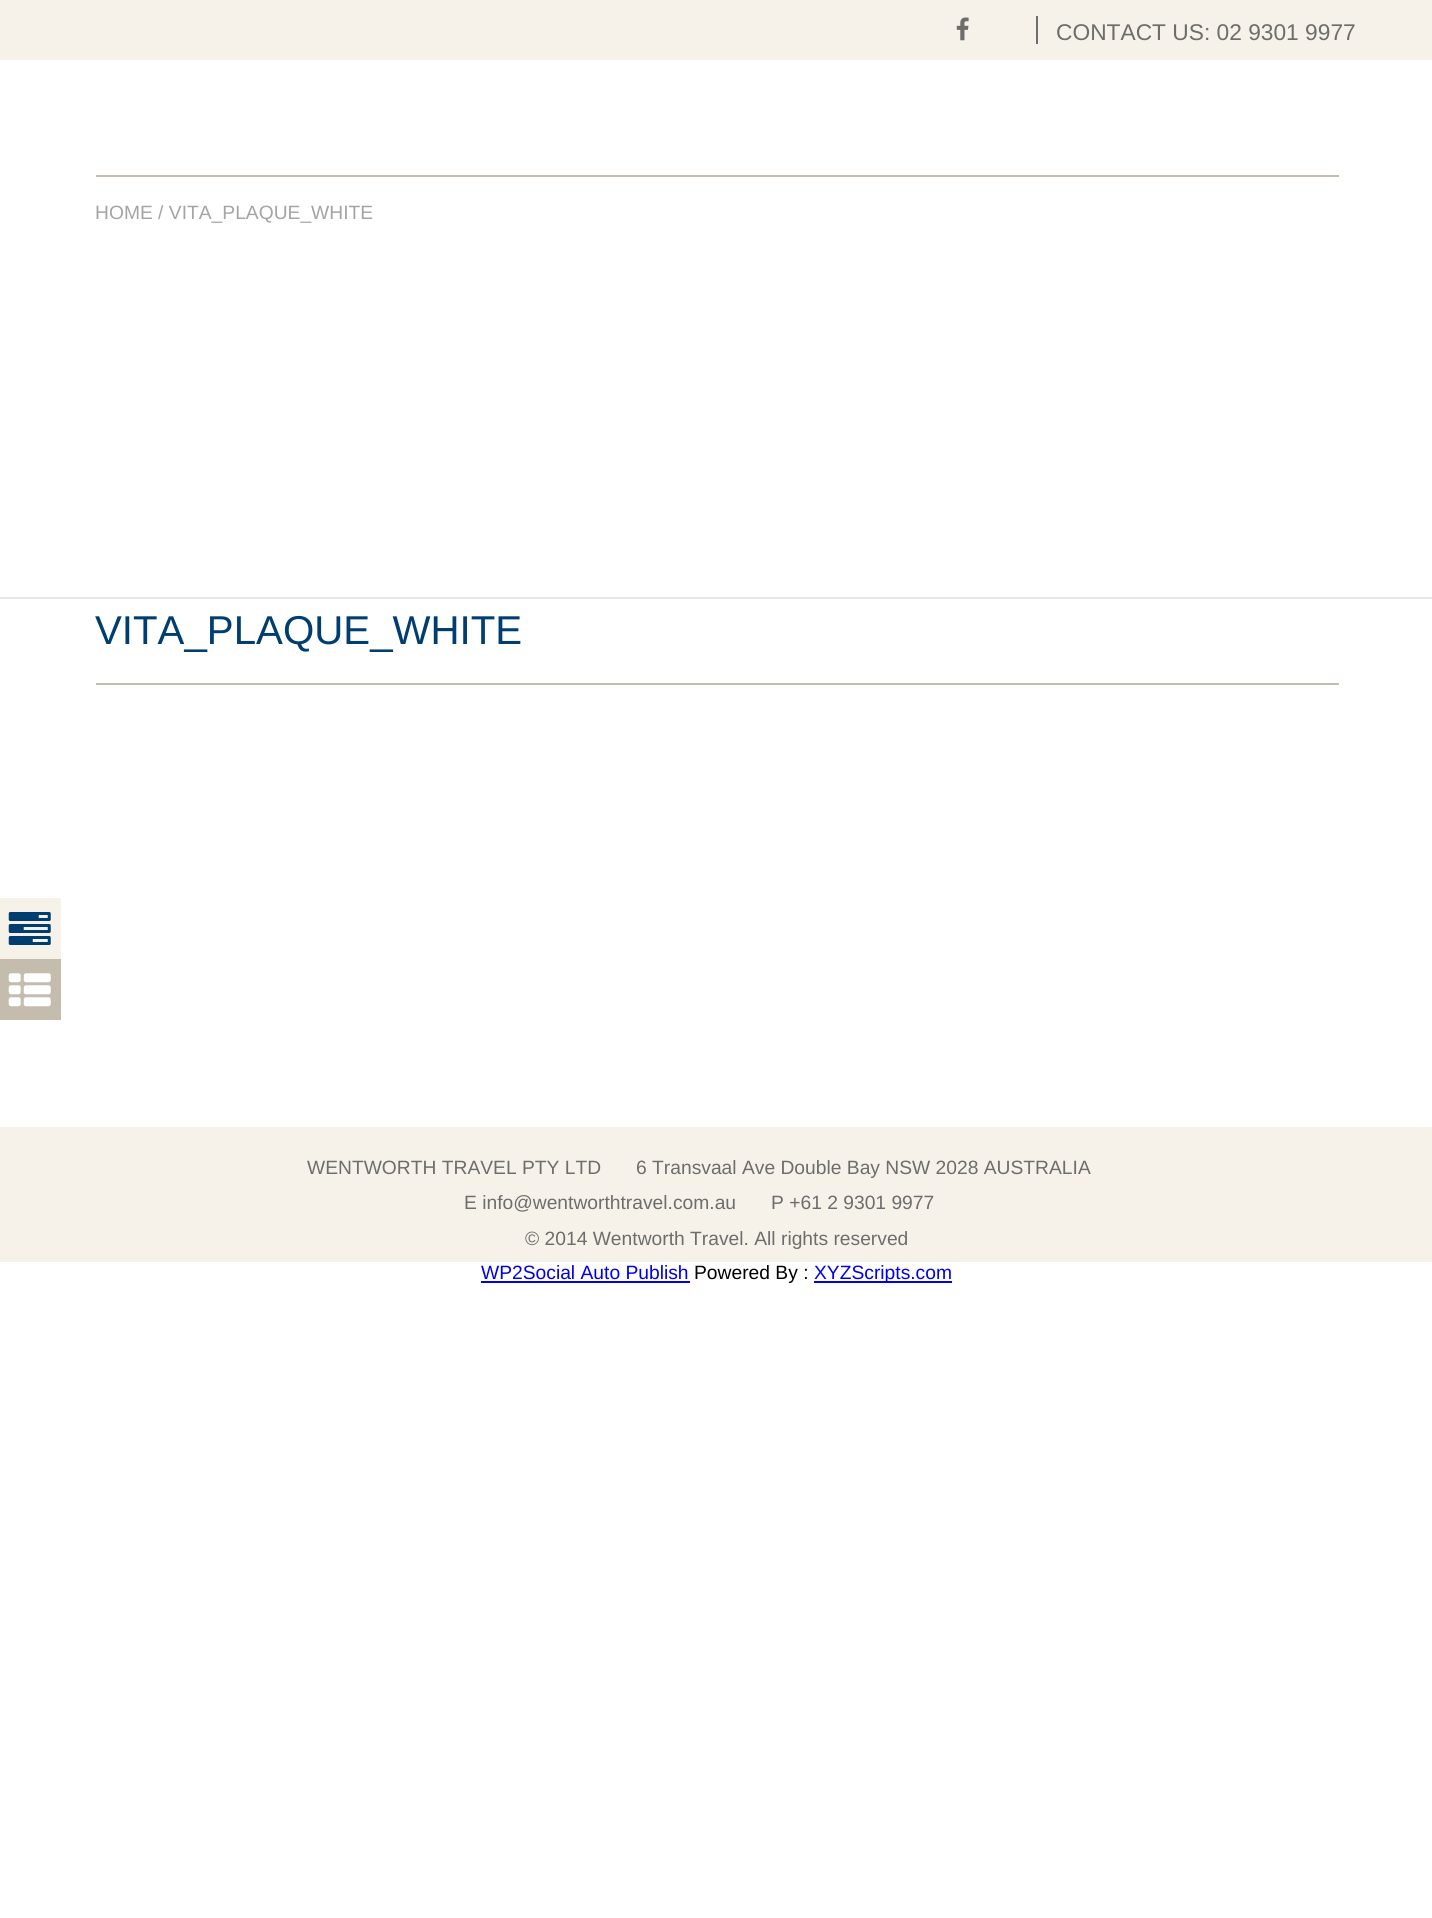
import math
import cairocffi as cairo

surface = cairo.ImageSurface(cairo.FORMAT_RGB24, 1432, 1918)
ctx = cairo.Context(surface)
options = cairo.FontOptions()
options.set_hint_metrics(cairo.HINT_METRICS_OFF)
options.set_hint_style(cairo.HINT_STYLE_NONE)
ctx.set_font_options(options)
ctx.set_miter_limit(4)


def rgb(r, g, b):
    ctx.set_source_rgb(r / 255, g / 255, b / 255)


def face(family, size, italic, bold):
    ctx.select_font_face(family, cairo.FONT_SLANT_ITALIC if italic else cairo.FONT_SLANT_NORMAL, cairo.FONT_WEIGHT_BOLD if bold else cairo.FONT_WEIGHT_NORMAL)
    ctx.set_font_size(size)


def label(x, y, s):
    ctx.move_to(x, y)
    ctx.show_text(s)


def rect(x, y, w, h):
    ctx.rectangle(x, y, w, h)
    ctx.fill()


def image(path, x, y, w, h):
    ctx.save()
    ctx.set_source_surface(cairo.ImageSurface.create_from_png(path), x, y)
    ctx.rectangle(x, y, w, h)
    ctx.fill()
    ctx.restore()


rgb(255, 255, 255)
ctx.paint()
rgb(246, 242, 234)
rect(0, 0, 1432, 60)
rgb(109, 109, 108)
rect(1036, 16, 2, 28)
image('image0.png', 956, 17, 13, 24)
face('Liberation Sans', 22.75, 0, 0)
label(1056, 40, 'CONTACT US: 02 9301 9977')
rgb(246, 242, 234)
rect(0, 898, 61, 61)
image('image1.png', 8, 912, 43, 33)
rgb(196, 188, 173)
rect(96, 175, 1243, 2)
face('Liberation Sans', 19.25, 0, 0)
rgb(163, 164, 163)
label(95, 219, 'HOME / VITA_PLAQUE_WHITE')
rgb(230, 231, 232)
rect(0, 597, 1432, 2)
rgb(196, 188, 173)
rect(96, 683, 1243, 2)
face('Liberation Sans', 40.25, 0, 0)
rgb(0, 61, 113)
label(95, 644, 'VITA_PLAQUE_WHITE')
rgb(246, 242, 234)
rect(0, 1127, 1432, 135)
rgb(196, 188, 173)
rect(0, 959, 61, 61)
image('image2.png', 8, 973, 43, 34)
face('Liberation Sans', 19.25, 0, 0)
rgb(109, 109, 108)
label(307, 1174, 'WENTWORTH TRAVEL PTY LTD')
label(636, 1174, '6 Transvaal Ave Double Bay NSW 2028 AUSTRALIA')
label(464, 1209, 'E info@wentworthtravel.com.au')
label(771, 1209, 'P +61 2 9301 9977')
label(525, 1245, '© 2014 Wentworth Travel. All rights reserved')
rgb(0, 0, 238)
label(481, 1279, 'WP2Social Auto Publish')
rect(481, 1281, 209, 2)
rgb(0, 0, 0)
label(694, 1279, 'Powered By :')
rgb(0, 0, 238)
rect(814, 1281, 138, 2)
label(814, 1279, 'XYZScripts.com')
surface.write_to_png('render.png')
